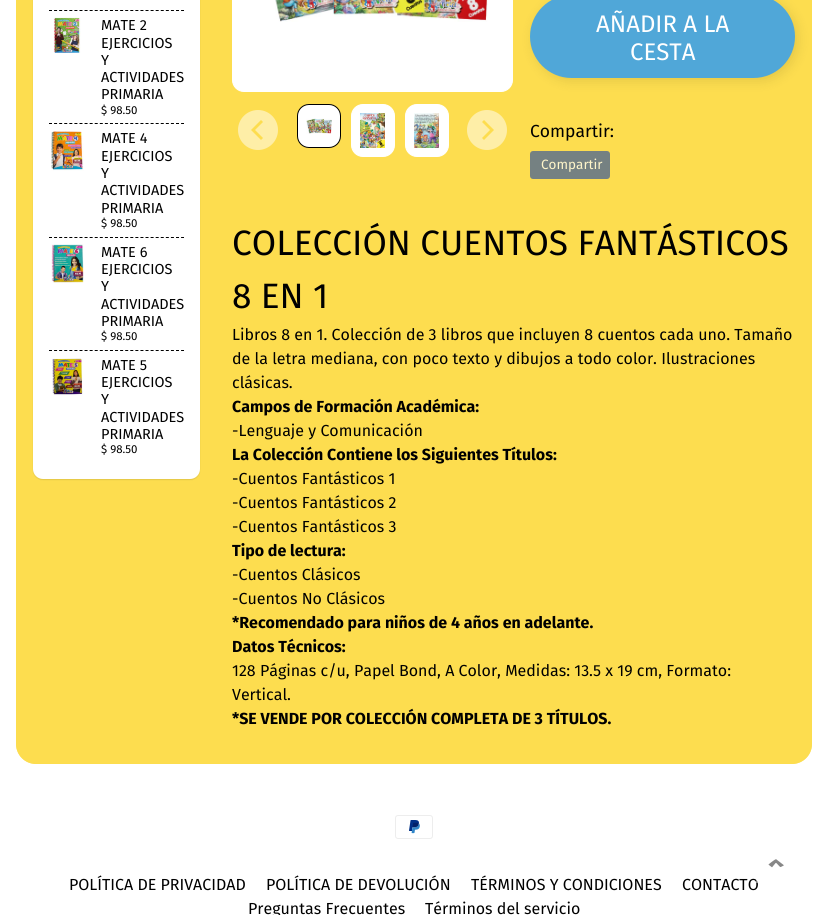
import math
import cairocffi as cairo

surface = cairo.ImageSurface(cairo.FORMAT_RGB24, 828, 915)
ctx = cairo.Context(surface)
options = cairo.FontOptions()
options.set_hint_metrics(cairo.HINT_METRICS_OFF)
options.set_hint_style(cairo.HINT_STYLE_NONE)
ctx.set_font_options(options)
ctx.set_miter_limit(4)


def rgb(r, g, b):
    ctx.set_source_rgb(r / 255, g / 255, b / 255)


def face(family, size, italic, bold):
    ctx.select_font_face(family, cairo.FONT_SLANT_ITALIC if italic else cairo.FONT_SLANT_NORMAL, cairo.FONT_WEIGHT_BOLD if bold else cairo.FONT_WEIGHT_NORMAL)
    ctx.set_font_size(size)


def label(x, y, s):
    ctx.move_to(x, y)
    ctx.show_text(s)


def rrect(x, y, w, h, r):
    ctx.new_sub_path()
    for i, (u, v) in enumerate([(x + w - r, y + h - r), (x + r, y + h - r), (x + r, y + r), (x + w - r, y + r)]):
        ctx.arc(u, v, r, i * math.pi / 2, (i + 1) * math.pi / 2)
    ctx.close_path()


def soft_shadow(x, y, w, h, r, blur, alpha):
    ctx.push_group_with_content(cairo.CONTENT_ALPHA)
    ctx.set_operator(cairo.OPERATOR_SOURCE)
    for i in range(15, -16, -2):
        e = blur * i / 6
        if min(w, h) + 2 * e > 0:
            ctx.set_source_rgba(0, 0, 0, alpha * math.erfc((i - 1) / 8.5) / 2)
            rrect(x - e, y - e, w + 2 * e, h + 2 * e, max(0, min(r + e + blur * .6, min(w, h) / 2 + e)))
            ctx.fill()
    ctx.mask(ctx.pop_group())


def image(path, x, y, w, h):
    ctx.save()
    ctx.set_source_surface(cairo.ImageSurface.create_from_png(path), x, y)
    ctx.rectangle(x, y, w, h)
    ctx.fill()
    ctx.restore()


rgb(255, 255, 255)
ctx.paint()
rgb(253, 221, 79)
rrect(16, -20, 796, 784, 20)
ctx.fill()
rrect(16.5, -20.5, 795, 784, 19.5)
ctx.set_source_rgba(0.992, 0.867, 0.31, 0.7)
ctx.set_line_width(1)
ctx.stroke()
rgb(0, 0, 0)
soft_shadow(33, -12, 167, 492, 10, 0.5, 0.1)
rgb(255, 255, 255)
rrect(33, -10, 167, 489, 10)
ctx.fill()
ctx.new_path()
ctx.move_to(49, 10.5)
ctx.line_to(184, 10.5)
rgb(0, 0, 0)
ctx.set_dash([3, 2.08])
ctx.stroke()
image('image0.png', 53, 17, 28, 36)
face('Fira Sans', 14.5, 0, 0)
label(101, 30, 'MATE 2')
label(101, 48, 'EJERCICIOS')
label(101, 65, 'Y')
label(101, 82, 'ACTIVIDADES')
label(101, 99, 'PRIMARIA')
face('Fira Sans', 11.5, 0, 0)
label(101, 114, '$ 98.50')
ctx.new_path()
ctx.move_to(49, 123.5)
ctx.line_to(184, 123.5)
ctx.stroke()
image('image1.png', 51, 131, 33, 40)
face('Fira Sans', 14.5, 0, 0)
label(101, 143, 'MATE 4')
label(101, 161, 'EJERCICIOS')
label(101, 178, 'Y')
label(101, 195, 'ACTIVIDADES')
label(101, 213, 'PRIMARIA')
face('Fira Sans', 11.5, 0, 0)
label(101, 227, '$ 98.50')
ctx.new_path()
ctx.move_to(49, 237.5)
ctx.line_to(184, 237.5)
ctx.stroke()
image('image2.png', 51, 244, 33, 39)
face('Fira Sans', 14.5, 0, 0)
label(101, 257, 'MATE 6')
label(101, 274, 'EJERCICIOS')
label(101, 291, 'Y')
label(101, 309, 'ACTIVIDADES')
label(101, 326, 'PRIMARIA')
face('Fira Sans', 11.5, 0, 0)
label(101, 340, '$ 98.50')
ctx.new_path()
ctx.move_to(49, 350.5)
ctx.line_to(184, 350.5)
ctx.stroke()
image('image3.png', 52, 358, 31, 38)
face('Fira Sans', 14.5, 0, 0)
label(101, 370, 'MATE 5')
label(101, 387, 'EJERCICIOS')
label(101, 404, 'Y')
label(101, 422, 'ACTIVIDADES')
label(101, 439, 'PRIMARIA')
face('Fira Sans', 11.5, 0, 0)
label(101, 453, '$ 98.50')
rgb(255, 255, 255)
rrect(232.5, -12.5, 280, 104, 11.5)
ctx.fill_preserve()
ctx.set_dash([])
ctx.stroke()
image('image4.png', 275, 0, 213, 22)
rrect(297.5, 104.5, 43, 43, 11.5)
ctx.fill_preserve()
rgb(0, 0, 0)
ctx.stroke()
image('image5.png', 306, 118, 26, 16)
rgb(255, 255, 255)
rrect(351.5, 104.5, 43, 52, 11.5)
ctx.fill_preserve()
ctx.stroke()
image('image6.png', 360, 113, 25, 35)
rrect(405.5, 104.5, 43, 52, 11.5)
ctx.fill_preserve()
ctx.stroke()
image('image7.png', 414, 113, 25, 35)
rgb(254, 238, 167)
ctx.arc(258, 130, 20, 0, 2 * math.pi)
ctx.fill()
rgb(253, 221, 79)
ctx.new_path()
ctx.move_to(261, 120)
ctx.line_to(263, 122)
ctx.line_to(255, 130)
ctx.line_to(263, 138)
ctx.line_to(261, 140)
ctx.line_to(251, 130)
ctx.close_path()
ctx.fill()
rgb(254, 238, 167)
ctx.arc(487, 130, 20, 0, 2 * math.pi)
ctx.fill()
rgb(253, 221, 79)
ctx.new_path()
ctx.move_to(484, 140)
ctx.line_to(482, 138)
ctx.line_to(490, 130)
ctx.line_to(482, 122)
ctx.line_to(484, 120)
ctx.line_to(494, 130)
ctx.close_path()
ctx.fill()
rgb(0, 0, 0)
soft_shadow(533, -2, 265, 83, 41.5, 6, 0.1)
rgb(80, 167, 216)
rrect(530, -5, 265, 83, 41.5)
ctx.fill()
face('Fira Sans', 24, 0, 0)
rgb(255, 255, 255)
label(596, 32, 'AÑADIR A LA')
label(630, 60, 'CESTA')
face('Fira Sans', 17.5, 0, 0)
rgb(0, 0, 0)
label(530, 137, 'Compartir:')
rgb(117, 129, 130)
rrect(530, 151, 80, 28, 3)
ctx.fill()
face('Fira Sans', 13.5, 0, 0)
rgb(254, 245, 202)
label(541, 169, 'Compartir')
face('Fira Sans', 35.25, 0, 0)
rgb(0, 0, 0)
label(232, 255, 'COLECCIÓN CUENTOS FANTÁSTICOS')
label(232, 308, '8 EN 1')
face('Fira Sans', 16, 0, 0)
label(232, 340, 'Libros 8 en 1. Colección de 3 libros que incluyen 8 cuentos cada uno. Tamaño')
label(232, 364, 'de la letra mediana, con poco texto y dibujos a todo color. Ilustraciones')
label(232, 388, 'clásicas.')
face('Fira Sans', 16, 0, 1)
label(232, 412, 'Campos de Formación Académica:')
face('Fira Sans', 16, 0, 0)
label(232, 436, '-Lenguaje y Comunicación')
face('Fira Sans', 16, 0, 1)
label(232, 460, 'La Colección Contiene los Siguientes Títulos:')
face('Fira Sans', 16, 0, 0)
label(232, 484, '-Cuentos Fantásticos 1')
label(232, 508, '-Cuentos Fantásticos 2')
label(232, 532, '-Cuentos Fantásticos 3')
face('Fira Sans', 16, 0, 1)
label(232, 556, 'Tipo de lectura:')
face('Fira Sans', 16, 0, 0)
label(232, 580, '-Cuentos Clásicos')
label(232, 604, '-Cuentos No Clásicos')
face('Fira Sans', 16, 0, 1)
label(232, 628, '*Recomendado para niños de 4 años en adelante.')
label(232, 652, 'Datos Técnicos:')
face('Fira Sans', 16, 0, 0)
label(232, 676, '128 Páginas c/u, Papel Bond, A Color, Medidas: 13.5 x 19 cm, Formato:')
label(232, 700, 'Vertical.')
face('Fira Sans', 16, 0, 1)
label(232, 724, '*SE VENDE POR COLECCIÓN COMPLETA DE 3 TÍTULOS.')
image('image8.png', 395, 815, 38, 24)
face('Fira Sans', 16, 0, 0)
label(682, 890, 'CONTACTO')
image('image9.png', 756, 859, 28, 24)
label(69, 890, 'POLÍTICA DE PRIVACIDAD')
label(266, 890, 'POLÍTICA DE DEVOLUCIÓN')
label(471, 890, 'TÉRMINOS Y CONDICIONES')
label(248, 914, 'Preguntas Frecuentes')
label(425, 914, 'Términos del servicio')
surface.write_to_png('render.png')
